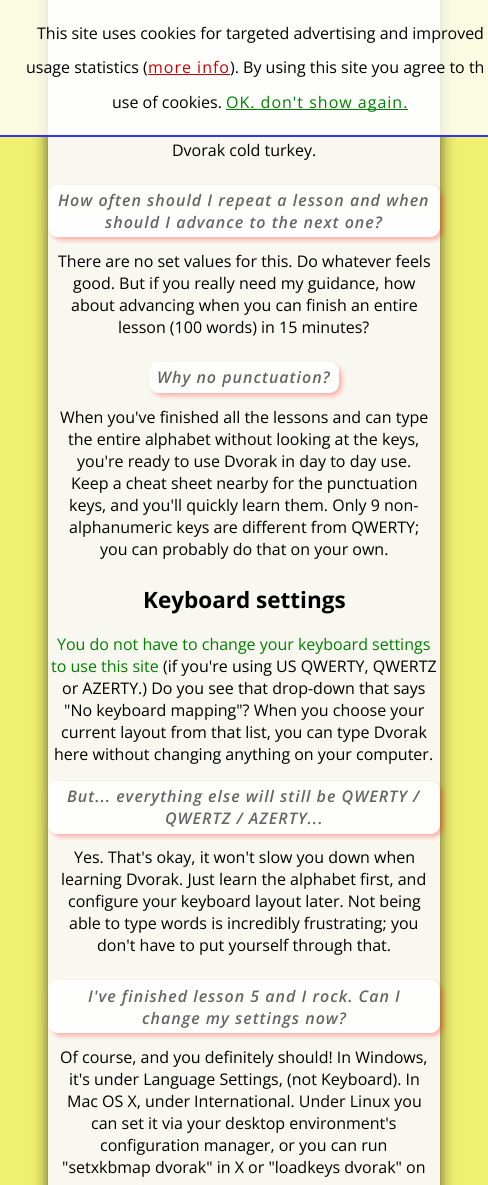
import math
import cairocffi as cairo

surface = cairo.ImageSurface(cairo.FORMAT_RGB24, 488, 1185)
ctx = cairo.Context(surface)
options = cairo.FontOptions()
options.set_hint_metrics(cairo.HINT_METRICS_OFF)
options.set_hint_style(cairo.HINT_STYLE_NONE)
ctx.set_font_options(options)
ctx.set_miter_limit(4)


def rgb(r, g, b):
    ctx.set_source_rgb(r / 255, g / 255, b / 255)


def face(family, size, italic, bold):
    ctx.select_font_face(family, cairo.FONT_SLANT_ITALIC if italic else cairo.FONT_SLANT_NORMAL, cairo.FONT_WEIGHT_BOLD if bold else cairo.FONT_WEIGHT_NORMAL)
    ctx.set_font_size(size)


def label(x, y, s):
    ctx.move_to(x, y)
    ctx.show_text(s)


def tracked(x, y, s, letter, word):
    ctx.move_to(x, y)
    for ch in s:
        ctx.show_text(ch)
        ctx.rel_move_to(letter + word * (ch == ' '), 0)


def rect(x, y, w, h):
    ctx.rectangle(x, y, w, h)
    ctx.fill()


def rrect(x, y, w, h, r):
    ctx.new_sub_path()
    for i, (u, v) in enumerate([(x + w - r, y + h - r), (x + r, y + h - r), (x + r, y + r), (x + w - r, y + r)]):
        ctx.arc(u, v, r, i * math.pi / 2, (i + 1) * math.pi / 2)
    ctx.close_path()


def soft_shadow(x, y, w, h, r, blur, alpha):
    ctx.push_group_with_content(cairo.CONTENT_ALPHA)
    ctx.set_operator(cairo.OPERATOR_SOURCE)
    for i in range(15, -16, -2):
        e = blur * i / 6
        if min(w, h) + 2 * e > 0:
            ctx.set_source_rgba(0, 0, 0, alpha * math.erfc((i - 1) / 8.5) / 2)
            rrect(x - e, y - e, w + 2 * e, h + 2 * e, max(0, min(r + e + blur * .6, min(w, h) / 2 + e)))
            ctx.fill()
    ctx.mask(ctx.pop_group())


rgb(240, 240, 112)
ctx.paint()
rgb(0, 0, 0)
soft_shadow(48, -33, 392, 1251, 10, 7.5, 0.65)
rgb(248, 248, 240)
rect(48, 0, 392, 1185)
ctx.set_source_rgba(1, 1, 1, 0.8)
rect(0, 0, 488, 137)
ctx.set_source_rgba(0, 0, 1, 0.8)
rect(0, 135, 488, 2)
face('Open Sans', 16, 0, 0)
rgb(0, 0, 0)
label(37, 39, 'This site uses cookies for targeted advertising and improved')
label(26, 73, 'usage statistics (')
rgb(204, 0, 0)
tracked(148, 73, 'more info', 1, 0)
rect(148, 74, 82, 1)
rgb(0, 0, 0)
label(230, 73, '). By using this site you agree to th')
label(112, 108, 'use of cookies.')
rgb(0, 128, 0)
rect(226, 109, 182, 1)
tracked(226, 108, 'OK. don\'t show again.', 1, 0)
rgb(0, 0, 0)
label(172, 156, 'Dvorak cold turkey.')
ctx.save()
ctx.set_fill_rule(cairo.FILL_RULE_EVEN_ODD)
ctx.new_path()
ctx.move_to(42, 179)
ctx.line_to(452, 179)
ctx.line_to(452, 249)
ctx.line_to(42, 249)
ctx.close_path()
ctx.move_to(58, 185)
ctx.line_to(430, 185)
ctx.curve_to(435.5, 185, 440, 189.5, 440, 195)
ctx.line_to(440, 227)
ctx.curve_to(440, 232.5, 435.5, 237, 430, 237)
ctx.line_to(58, 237)
ctx.curve_to(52.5, 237, 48, 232.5, 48, 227)
ctx.line_to(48, 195)
ctx.curve_to(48, 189.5, 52.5, 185, 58, 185)
ctx.close_path()
ctx.clip()
rgb(255, 0, 0)
soft_shadow(51, 188, 392, 52, 10, 2.5, 0.3)
ctx.restore()
ctx.set_source_rgba(1, 1, 1, 0.8)
rrect(48, 185, 392, 52, 10)
ctx.fill()
face('Open Sans SemiBold', 16, 1, 0)
rgb(102, 102, 102)
tracked(58, 206, 'How often should I repeat a lesson and when', 1, 0)
tracked(105, 228, 'should I advance to the next one?', 1, 0)
face('Open Sans', 16, 0, 0)
rgb(0, 0, 0)
label(58, 267, 'There are no set values for this. Do whatever feels')
label(73, 289, 'good. But if you really need my guidance, how')
label(71, 311, 'about advancing when you can finish an entire')
label(118, 333, 'lesson (100 words) in 15 minutes?')
ctx.save()
ctx.set_fill_rule(cairo.FILL_RULE_EVEN_ODD)
ctx.new_path()
ctx.move_to(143, 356)
ctx.line_to(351, 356)
ctx.line_to(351, 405)
ctx.line_to(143, 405)
ctx.close_path()
ctx.move_to(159, 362)
ctx.line_to(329, 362)
ctx.curve_to(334.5, 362, 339, 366.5, 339, 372)
ctx.line_to(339, 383)
ctx.curve_to(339, 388.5, 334.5, 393, 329, 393)
ctx.line_to(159, 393)
ctx.curve_to(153.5, 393, 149, 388.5, 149, 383)
ctx.line_to(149, 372)
ctx.curve_to(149, 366.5, 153.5, 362, 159, 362)
ctx.close_path()
ctx.clip()
rgb(255, 0, 0)
soft_shadow(152, 365, 190, 31, 10, 2.5, 0.3)
ctx.restore()
ctx.set_source_rgba(1, 1, 1, 0.8)
rrect(149, 362, 190, 31, 10)
ctx.fill()
face('Open Sans SemiBold', 16, 1, 0)
rgb(102, 102, 102)
tracked(157, 383, 'Why no punctuation?', 1, 0)
face('Open Sans', 16, 0, 0)
rgb(0, 0, 0)
label(60, 423, 'When you\'ve finished all the lessons and can type')
label(68, 445, 'the entire alphabet without looking at the keys,')
label(77, 467, 'you\'re ready to use Dvorak in day to day use.')
label(71, 489, 'Keep a cheat sheet nearby for the punctuation')
label(69, 511, 'keys, and you\'ll quickly learn them. Only 9 non-')
label(69, 533, 'alphanumeric keys are different from QWERTY;')
label(100, 555, 'you can probably do that on your own.')
face('Open Sans', 22.5, 0, 1)
label(143, 608, 'Keyboard settings')
face('Open Sans', 16, 0, 0)
rgb(0, 128, 0)
label(57, 650, 'You do not have to change your keyboard settings')
label(51, 672, 'to use this site')
rgb(0, 0, 0)
label(163, 672, '(if you\'re using US QWERTY, QWERTZ')
label(62, 694, 'or AZERTY.) Do you see that drop-down that says')
label(64, 716, '"No keyboard mapping"? When you choose your')
label(61, 738, 'current layout from that list, you can type Dvorak')
label(54, 760, 'here without changing anything on your computer.')
ctx.save()
ctx.set_fill_rule(cairo.FILL_RULE_EVEN_ODD)
ctx.new_path()
ctx.move_to(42, 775)
ctx.line_to(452, 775)
ctx.line_to(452, 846)
ctx.line_to(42, 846)
ctx.close_path()
ctx.move_to(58, 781)
ctx.line_to(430, 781)
ctx.curve_to(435.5, 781, 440, 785.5, 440, 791)
ctx.line_to(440, 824)
ctx.curve_to(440, 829.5, 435.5, 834, 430, 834)
ctx.line_to(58, 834)
ctx.curve_to(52.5, 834, 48, 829.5, 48, 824)
ctx.line_to(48, 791)
ctx.curve_to(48, 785.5, 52.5, 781, 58, 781)
ctx.close_path()
ctx.clip()
rgb(255, 0, 0)
soft_shadow(51, 784, 392, 53, 10, 2.5, 0.3)
ctx.restore()
ctx.set_source_rgba(1, 1, 1, 0.8)
rrect(48, 781, 392, 53, 10)
ctx.fill()
face('Open Sans SemiBold', 16, 1, 0)
rgb(102, 102, 102)
tracked(67, 802, 'But... everything else will still be QWERTY /', 1, 0)
tracked(165, 824, 'QWERTZ / AZERTY...', 1, 0)
face('Open Sans', 16, 0, 0)
rgb(0, 0, 0)
label(74, 863, 'Yes. That\'s okay, it won\'t slow you down when')
label(61, 885, 'learning Dvorak. Just learn the alphabet first, and')
label(68, 907, 'configure your keyboard layout later. Not being')
label(69, 929, 'able to type words is incredibly frustrating; you')
label(97, 951, 'don\'t have to put yourself through that.')
ctx.save()
ctx.set_fill_rule(cairo.FILL_RULE_EVEN_ODD)
ctx.new_path()
ctx.move_to(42, 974)
ctx.line_to(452, 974)
ctx.line_to(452, 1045)
ctx.line_to(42, 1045)
ctx.close_path()
ctx.move_to(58, 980)
ctx.line_to(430, 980)
ctx.curve_to(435.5, 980, 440, 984.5, 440, 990)
ctx.line_to(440, 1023)
ctx.curve_to(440, 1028.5, 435.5, 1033, 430, 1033)
ctx.line_to(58, 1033)
ctx.curve_to(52.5, 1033, 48, 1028.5, 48, 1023)
ctx.line_to(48, 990)
ctx.curve_to(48, 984.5, 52.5, 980, 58, 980)
ctx.close_path()
ctx.clip()
rgb(255, 0, 0)
soft_shadow(51, 983, 392, 53, 10, 2.5, 0.3)
ctx.restore()
ctx.set_source_rgba(1, 1, 1, 0.8)
rrect(48, 980, 392, 53, 10)
ctx.fill()
face('Open Sans SemiBold', 16, 1, 0)
rgb(102, 102, 102)
tracked(88, 1002, 'I\'ve finished lesson 5 and I rock. Can I', 1, 0)
tracked(142, 1024, 'change my settings now?', 1, 0)
face('Open Sans', 16, 0, 0)
rgb(0, 0, 0)
label(60, 1063, 'Of course, and you definitely should! In Windows,')
label(69, 1085, 'it\'s under Language Settings, (not Keyboard). In')
label(67, 1107, 'Mac OS X, under International. Under Linux you')
label(91, 1129, 'can set it via your desktop environment\'s')
label(100, 1151, 'configuration manager, or you can run')
label(62, 1173, '"setxkbmap dvorak" in X or "loadkeys dvorak" on')
surface.write_to_png('render.png')
